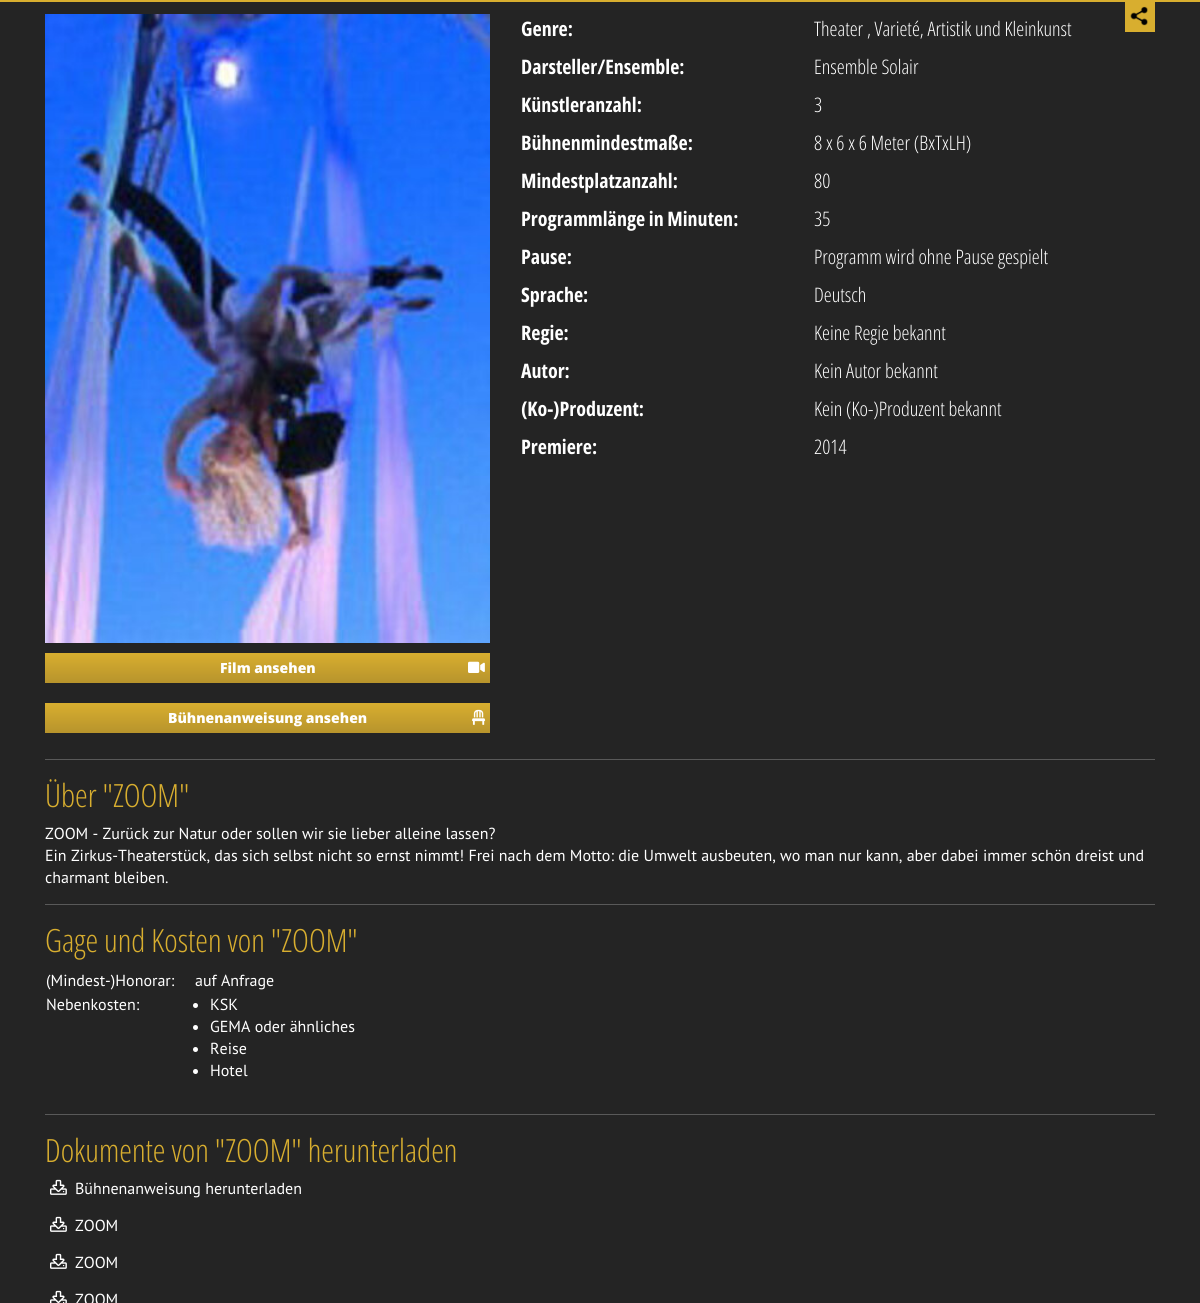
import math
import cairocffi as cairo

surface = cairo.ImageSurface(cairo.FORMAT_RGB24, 1200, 1303)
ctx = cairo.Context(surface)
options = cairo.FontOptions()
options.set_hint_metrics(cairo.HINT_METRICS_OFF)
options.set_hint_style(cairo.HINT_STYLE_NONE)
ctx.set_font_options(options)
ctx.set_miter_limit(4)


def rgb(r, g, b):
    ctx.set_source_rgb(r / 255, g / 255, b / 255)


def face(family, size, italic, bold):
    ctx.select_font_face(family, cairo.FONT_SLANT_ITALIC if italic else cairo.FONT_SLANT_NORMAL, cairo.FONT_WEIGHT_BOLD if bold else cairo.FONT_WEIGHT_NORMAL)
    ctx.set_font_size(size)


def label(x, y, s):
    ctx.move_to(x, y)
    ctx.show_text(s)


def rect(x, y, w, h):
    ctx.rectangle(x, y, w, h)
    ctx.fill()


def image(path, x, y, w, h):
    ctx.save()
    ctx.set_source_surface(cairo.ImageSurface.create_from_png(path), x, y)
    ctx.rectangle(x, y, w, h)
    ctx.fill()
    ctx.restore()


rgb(36, 36, 36)
ctx.paint()
rgb(216, 174, 47)
rect(0, 0, 1200, 2)
rect(1125, 2, 30, 30)
image('image0.png', 1130, 6, 18, 20)
face('Open Sans Condensed', 20, 0, 1)
rgb(255, 255, 255)
label(521, 36, 'Genre:')
face('Open Sans Condensed Light', 20, 0, 0)
label(814, 36, 'Theater , Varieté, Artistik und Kleinkunst')
face('Open Sans Condensed', 20, 0, 1)
label(521, 74, 'Darsteller/Ensemble:')
face('Open Sans Condensed Light', 20, 0, 0)
label(814, 74, 'Ensemble Solair')
face('Open Sans Condensed', 20, 0, 1)
label(521, 112, 'Künstleranzahl:')
face('Open Sans Condensed Light', 20, 0, 0)
label(814, 112, '3')
face('Open Sans Condensed', 20, 0, 1)
label(521, 150, 'Bühnenmindestmaße:')
face('Open Sans Condensed Light', 20, 0, 0)
label(814, 150, '8 x 6 x 6 Meter (BxTxLH)')
face('Open Sans Condensed', 20, 0, 1)
label(521, 188, 'Mindestplatzanzahl:')
face('Open Sans Condensed Light', 20, 0, 0)
label(814, 188, '80')
face('Open Sans Condensed', 20, 0, 1)
label(521, 226, 'Programmlänge in Minuten:')
face('Open Sans Condensed Light', 20, 0, 0)
label(814, 226, '35')
face('Open Sans Condensed', 20, 0, 1)
label(521, 264, 'Pause:')
face('Open Sans Condensed Light', 20, 0, 0)
label(814, 264, 'Programm wird ohne Pause gespielt')
face('Open Sans Condensed', 20, 0, 1)
label(521, 302, 'Sprache:')
face('Open Sans Condensed Light', 20, 0, 0)
label(814, 302, 'Deutsch')
face('Open Sans Condensed', 20, 0, 1)
label(521, 340, 'Regie:')
face('Open Sans Condensed Light', 20, 0, 0)
label(814, 340, 'Keine Regie bekannt')
face('Open Sans Condensed', 20, 0, 1)
label(521, 378, 'Autor:')
face('Open Sans Condensed Light', 20, 0, 0)
label(814, 378, 'Kein Autor bekannt')
face('Open Sans Condensed', 20, 0, 1)
label(521, 416, '(Ko-)Produzent:')
face('Open Sans Condensed Light', 20, 0, 0)
label(814, 416, 'Kein (Ko-)Produzent bekannt')
face('Open Sans Condensed', 20, 0, 1)
label(521, 454, 'Premiere:')
face('Open Sans Condensed Light', 20, 0, 0)
label(814, 454, '2014')
image('image1.png', 45, 14, 445, 629)
gradient = cairo.LinearGradient(268, 653, 268, 683)
gradient.add_color_stop_rgba(0, 0.847, 0.682, 0.184, 1)
gradient.add_color_stop_rgba(1, 0.718, 0.58, 0.173, 1)
ctx.set_source(gradient)
rect(45, 653, 445, 30)
face('Open Sans ExtraBold', 14, 0, 0)
rgb(255, 255, 255)
label(220, 673, 'Film ansehen')
image('image2.png', 468, 661, 17, 12)
gradient = cairo.LinearGradient(268, 703, 268, 733)
gradient.add_color_stop_rgba(0, 0.847, 0.682, 0.184, 1)
gradient.add_color_stop_rgba(1, 0.718, 0.58, 0.173, 1)
ctx.set_source(gradient)
rect(45, 703, 445, 30)
rgb(255, 255, 255)
label(168, 723, 'Bühnenanweisung ansehen')
image('image3.png', 472, 709, 14, 16)
rgb(89, 89, 89)
rect(45, 759, 1110, 1)
face('Open Sans Condensed Light', 32, 0, 0)
rgb(216, 174, 47)
label(45, 807, 'Über "ZOOM"')
face('PT Sans', 16, 0, 0)
rgb(255, 255, 255)
label(45, 839, 'ZOOM - Zurück zur Natur oder sollen wir sie lieber alleine lassen?')
label(45, 861, 'Ein Zirkus-Theaterstück, das sich selbst nicht so ernst nimmt! Frei nach dem Motto: die Umwelt ausbeuten, wo man nur kann, aber dabei immer schön dreist und')
label(45, 883, 'charmant bleiben.')
rgb(89, 89, 89)
rect(45, 904, 1110, 1)
face('Open Sans Condensed Light', 32, 0, 0)
rgb(216, 174, 47)
label(45, 952, 'Gage und Kosten von "ZOOM"')
face('PT Sans', 16, 0, 0)
rgb(255, 255, 255)
label(46, 986, '(Mindest-)Honorar:')
label(195, 986, 'auf Anfrage')
label(46, 1010, 'Nebenkosten:')
ctx.new_path()
ctx.arc(195.5, 1005.5, 2.5, 0, 2 * math.pi)
ctx.fill()
label(210, 1010, 'KSK')
ctx.new_path()
ctx.arc(195.5, 1027.5, 2.5, 0, 2 * math.pi)
ctx.fill()
label(210, 1032, 'GEMA oder ähnliches')
ctx.new_path()
ctx.arc(195.5, 1049.5, 2.5, 0, 2 * math.pi)
ctx.fill()
label(210, 1054, 'Reise')
ctx.new_path()
ctx.arc(195.5, 1071.5, 2.5, 0, 2 * math.pi)
ctx.fill()
label(210, 1076, 'Hotel')
rgb(89, 89, 89)
rect(45, 1114, 1110, 1)
face('Open Sans Condensed Light', 32, 0, 0)
rgb(216, 174, 47)
label(45, 1162, 'Dokumente von "ZOOM" herunterladen')
image('image4.png', 50, 1179, 17, 16)
face('PT Sans', 16, 0, 0)
rgb(255, 255, 255)
label(75, 1194, 'Bühnenanweisung herunterladen')
image('image4.png', 50, 1216, 17, 16)
label(75, 1231, 'ZOOM')
image('image4.png', 50, 1253, 17, 16)
label(75, 1268, 'ZOOM')
image('image5.png', 50, 1290, 17, 13)
label(75, 1305, 'ZOOM')
surface.write_to_png('render.png')
